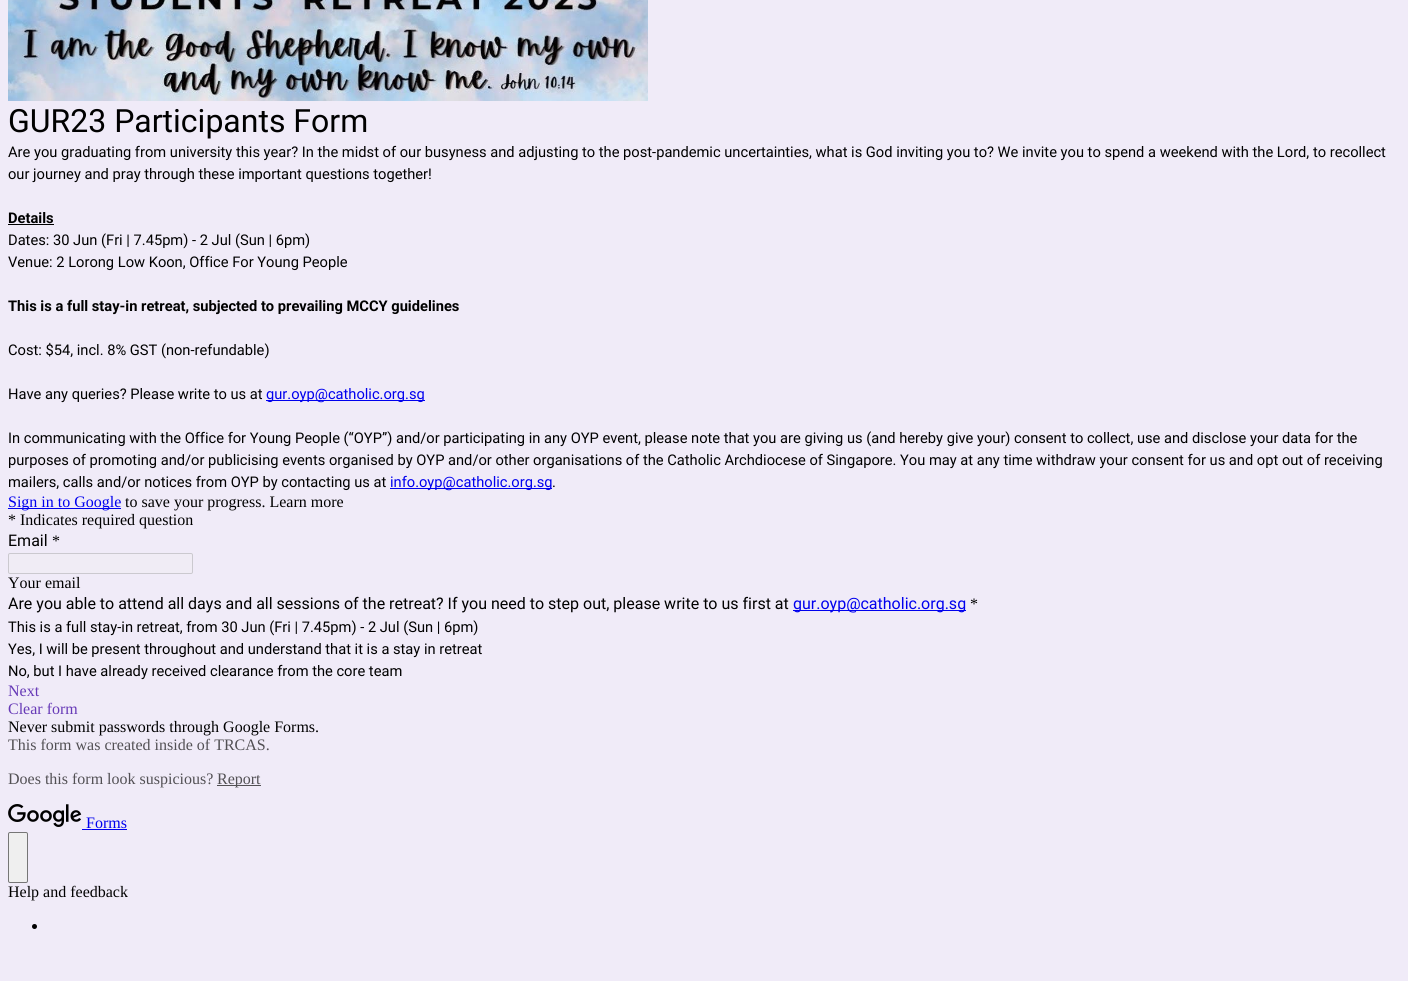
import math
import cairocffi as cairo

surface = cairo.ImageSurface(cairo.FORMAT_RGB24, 1408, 981)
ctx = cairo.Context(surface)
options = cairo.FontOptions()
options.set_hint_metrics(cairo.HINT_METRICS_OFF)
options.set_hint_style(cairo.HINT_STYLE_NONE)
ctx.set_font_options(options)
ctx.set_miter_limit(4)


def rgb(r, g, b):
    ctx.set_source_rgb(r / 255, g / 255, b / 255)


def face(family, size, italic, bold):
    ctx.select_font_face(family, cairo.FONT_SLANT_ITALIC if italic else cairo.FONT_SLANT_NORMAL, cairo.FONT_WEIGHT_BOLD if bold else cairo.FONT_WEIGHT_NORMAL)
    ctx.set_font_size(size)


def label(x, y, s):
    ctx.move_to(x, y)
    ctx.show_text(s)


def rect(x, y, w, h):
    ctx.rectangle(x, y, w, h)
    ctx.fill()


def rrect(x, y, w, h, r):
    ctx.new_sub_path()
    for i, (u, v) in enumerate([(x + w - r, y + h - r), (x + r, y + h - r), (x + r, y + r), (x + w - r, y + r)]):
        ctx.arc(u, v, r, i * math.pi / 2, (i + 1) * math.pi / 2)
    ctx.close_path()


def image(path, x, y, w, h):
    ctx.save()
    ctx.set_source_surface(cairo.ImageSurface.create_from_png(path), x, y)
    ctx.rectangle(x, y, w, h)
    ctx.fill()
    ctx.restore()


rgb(240, 235, 248)
ctx.paint()
image('image0.png', 8, 0, 640, 101)
face('Roboto', 32, 0, 0)
rgb(0, 0, 0)
label(8, 132, 'GUR23 Participants Form')
face('Roboto', 14.67, 0, 0)
label(8, 157, 'Are you graduating from university this year? In the midst of our busyness and adjusting to the post-pandemic uncertainties, what is God inviting you to? We invite you to spend a weekend with the Lord, to recollect')
label(8, 179, 'our journey and pray through these important questions together!')
face('Roboto', 14.67, 0, 1)
label(8, 223, 'Details')
rect(8, 224, 46, 1)
face('Roboto', 14.67, 0, 0)
label(8, 245, 'Dates: 30 Jun (Fri | 7.45pm) - 2 Jul (Sun | 6pm)')
label(8, 267, 'Venue: 2 Lorong Low Koon, Office For Young People')
face('Roboto', 14.67, 0, 1)
label(8, 311, 'This is a full stay-in retreat, subjected to prevailing MCCY guidelines')
face('Roboto', 14.67, 0, 0)
label(8, 355, 'Cost: $54, incl. 8% GST (non-refundable)')
label(8, 399, 'Have any queries? Please write to us at')
rgb(0, 0, 238)
rect(266, 400, 159, 1)
label(266, 399, 'gur.oyp@catholic.org.sg')
rgb(0, 0, 0)
label(8, 443, 'In communicating with the Office for Young People (“OYP”) and/or participating in any OYP event, please note that you are giving us (and hereby give your) consent to collect, use and disclose your data for the')
label(8, 465, 'purposes of promoting and/or publicising events organised by OYP and/or other organisations of the Catholic Archdiocese of Singapore. You may at any time withdraw your consent for us and opt out of receiving')
label(8, 487, 'mailers, calls and/or notices from OYP by contacting us at')
rgb(0, 0, 238)
rect(390, 488, 162, 1)
label(390, 487, 'info.oyp@catholic.org.sg')
rgb(0, 0, 0)
label(552, 487, '.')
rgb(0, 0, 238)
rect(8, 508, 113, 1)
face('Liberation Serif', 16, 0, 0)
label(8, 507, 'Sign in to Google')
rgb(0, 0, 0)
label(125, 507, 'to save your progress. Learn more')
label(8, 525, '* Indicates required question')
face('Roboto', 16, 0, 0)
label(8, 546, 'Email')
face('Liberation Serif', 16, 0, 0)
label(52, 546, '*')
rgb(240, 236, 245)
rrect(8.5, 553.5, 184, 20, 1.5)
ctx.fill_preserve()
rgb(203, 201, 207)
ctx.set_line_width(1)
ctx.stroke()
rgb(0, 0, 0)
label(8, 588, 'Your email')
face('Roboto', 16, 0, 0)
label(8, 609, 'Are you able to attend all days and all sessions of the retreat? If you need to step out, please write to us first at')
rgb(0, 0, 238)
rect(793, 610, 173, 1)
label(793, 609, 'gur.oyp@catholic.org.sg')
face('Liberation Serif', 16, 0, 0)
rgb(0, 0, 0)
label(970, 609, '*')
face('Roboto', 14.67, 0, 0)
label(8, 632, 'This is a full stay-in retreat, from 30 Jun (Fri | 7.45pm) - 2 Jul (Sun | 6pm)')
label(8, 654, 'Yes, I will be present throughout and understand that it is a stay in retreat')
label(8, 676, 'No, but I have already received clearance from the core team')
face('Liberation Serif', 16, 0, 0)
rgb(103, 58, 183)
label(8, 696, 'Next')
label(8, 714, 'Clear form')
rgb(0, 0, 0)
label(8, 732, 'Never submit passwords through Google Forms.')
rgb(82, 80, 84)
label(8, 750, 'This form was created inside of TRCAS.')
label(8, 784, 'Does this form look suspicious?')
rect(217, 785, 44, 1)
label(217, 784, 'Report')
image('image1.png', 8, 804, 74, 23)
rgb(0, 0, 238)
label(86, 828, 'Forms')
rect(82, 829, 45, 1)
rgb(239, 239, 239)
rrect(8.5, 832.5, 19, 50, 1.5)
ctx.fill_preserve()
rgb(118, 118, 118)
ctx.stroke()
rgb(0, 0, 0)
label(8, 897, 'Help and feedback')
ctx.new_path()
ctx.arc(34.5, 926.5, 2.5, 0, 2 * math.pi)
ctx.fill()
surface.write_to_png('render.png')
